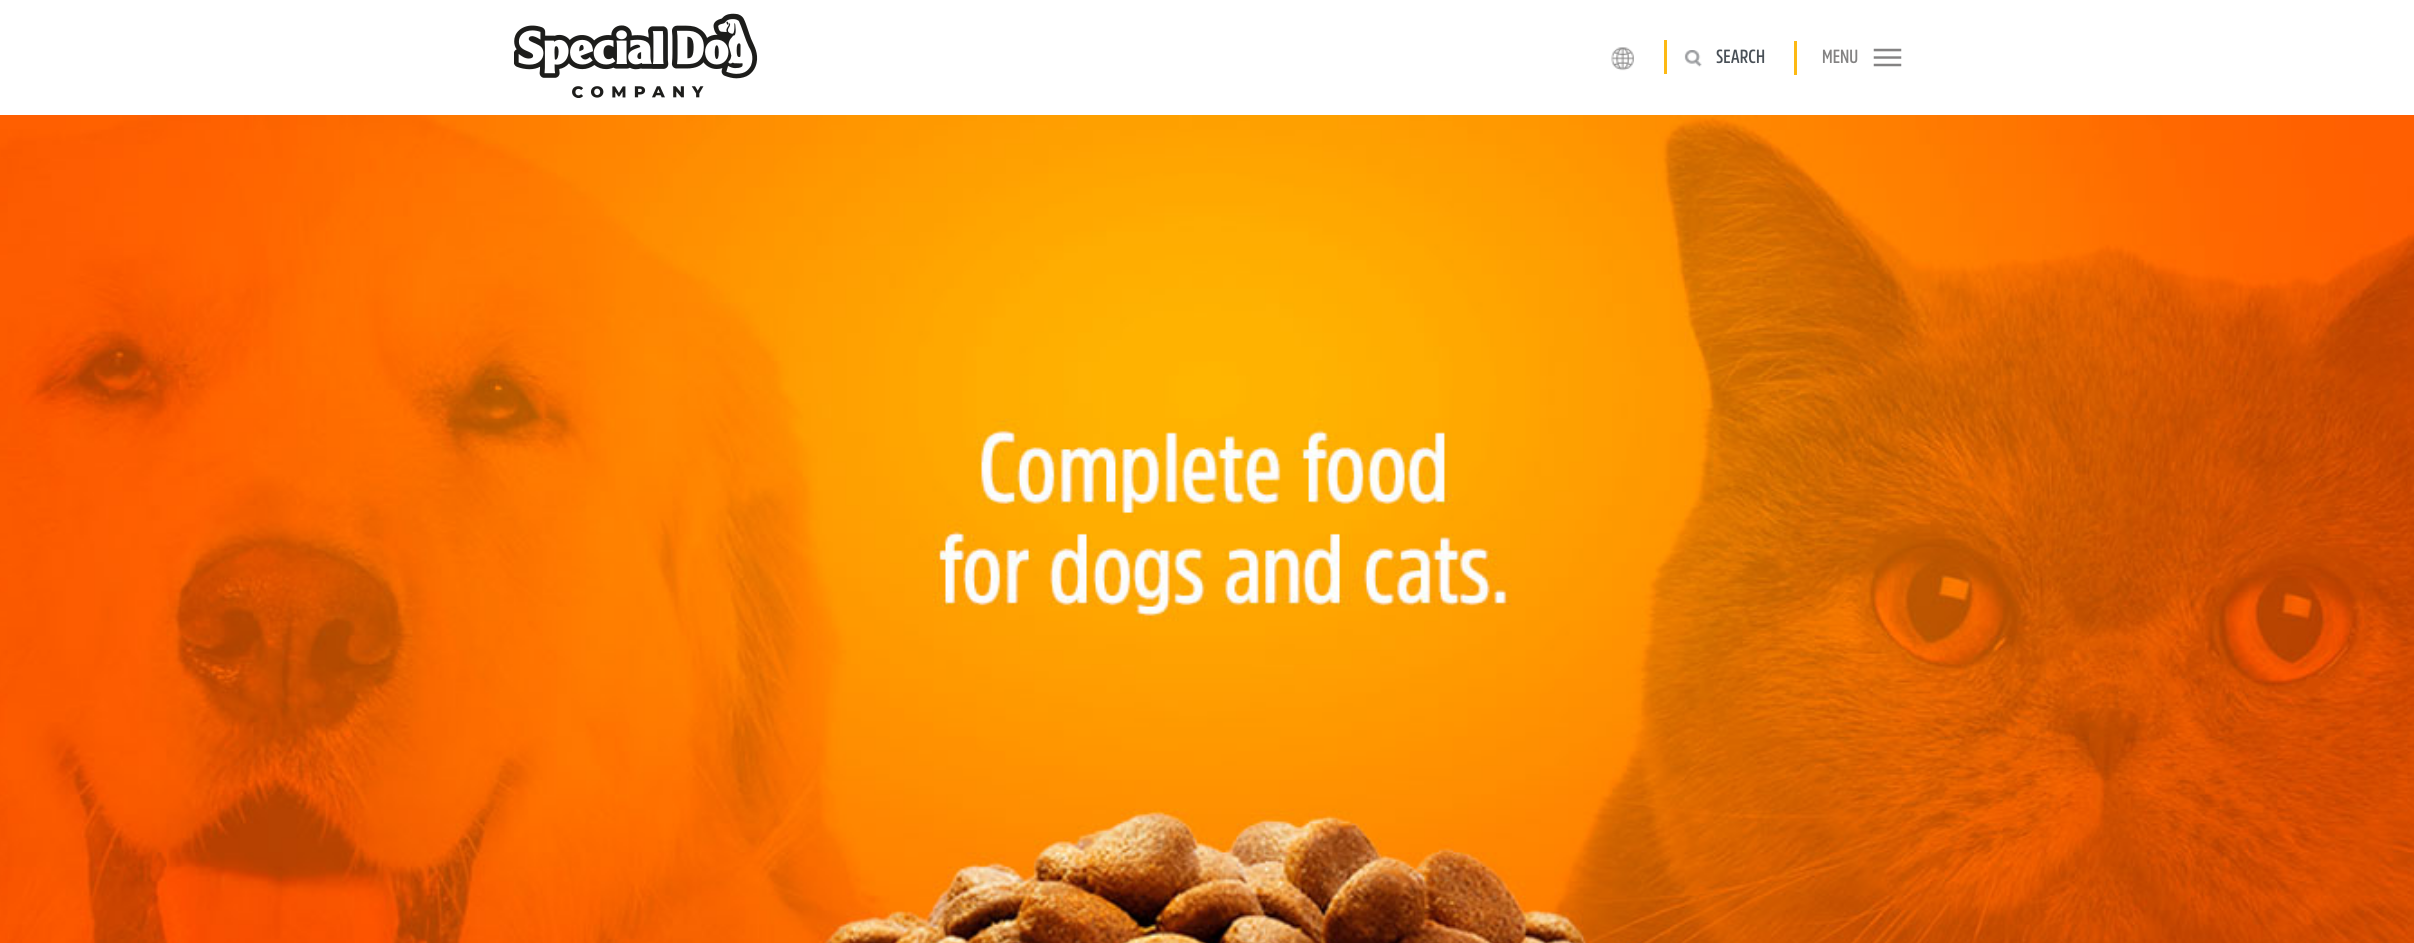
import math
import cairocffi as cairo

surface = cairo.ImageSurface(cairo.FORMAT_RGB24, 2414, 943)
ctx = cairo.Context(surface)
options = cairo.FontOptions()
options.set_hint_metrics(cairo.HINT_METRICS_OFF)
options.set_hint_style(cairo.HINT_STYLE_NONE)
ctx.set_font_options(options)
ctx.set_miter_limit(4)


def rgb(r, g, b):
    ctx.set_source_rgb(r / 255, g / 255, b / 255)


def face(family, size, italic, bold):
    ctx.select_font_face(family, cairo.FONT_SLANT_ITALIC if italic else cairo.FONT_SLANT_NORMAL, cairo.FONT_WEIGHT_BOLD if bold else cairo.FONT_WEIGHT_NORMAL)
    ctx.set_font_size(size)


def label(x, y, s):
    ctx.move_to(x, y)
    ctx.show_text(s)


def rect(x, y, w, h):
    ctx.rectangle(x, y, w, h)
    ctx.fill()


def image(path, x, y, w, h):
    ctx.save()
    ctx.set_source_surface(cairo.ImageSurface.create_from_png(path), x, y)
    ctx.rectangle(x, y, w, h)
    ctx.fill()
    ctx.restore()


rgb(255, 255, 255)
ctx.paint()
image('image0.png', 514, 13, 244, 85)
image('image1.png', 1611, 47, 23, 24)
rgb(253, 185, 19)
rect(1664, 40, 3, 34)
image('image2.png', 1684, 50, 18, 17)
face('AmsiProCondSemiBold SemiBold', 19, 0, 0)
rgb(73, 80, 87)
label(1716, 63, 'SEARCH')
rgb(253, 185, 19)
rect(1794, 41, 3, 34)
image('image3.png', 1873, 48, 29, 19)
rgb(132, 131, 131)
label(1822, 63, 'MENU')
image('image4.png', 0, 115, 2414, 828)
surface.write_to_png('render.png')
